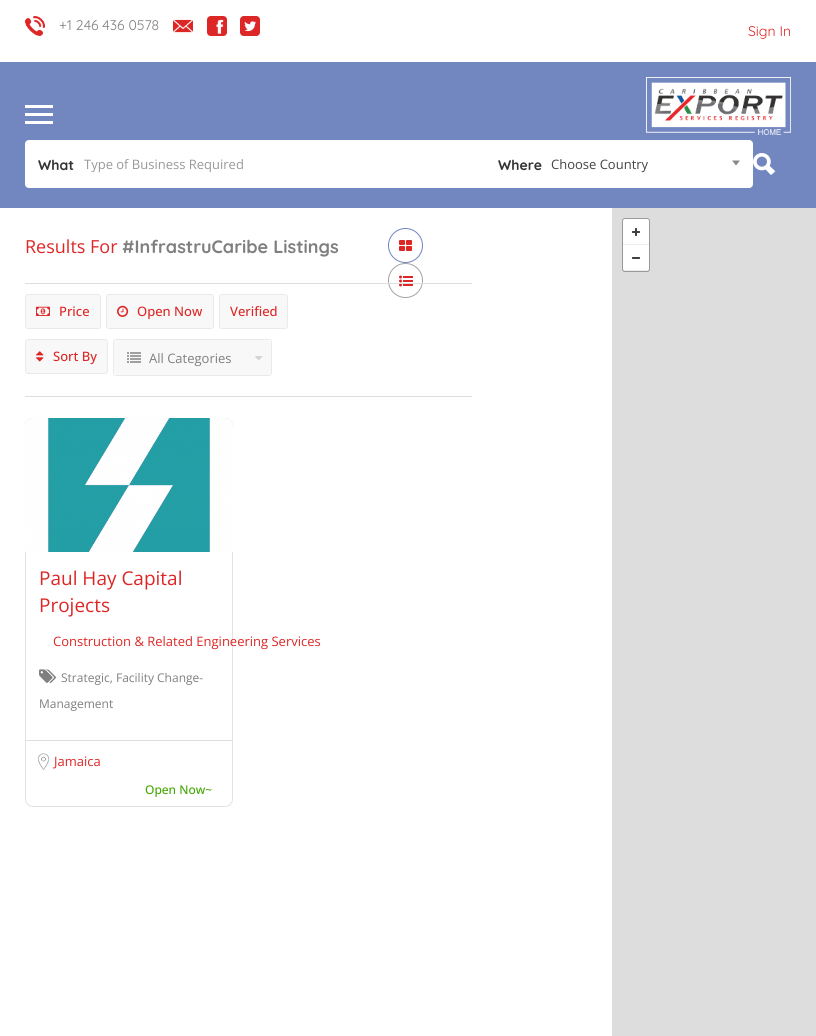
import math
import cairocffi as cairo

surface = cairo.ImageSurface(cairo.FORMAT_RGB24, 816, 1036)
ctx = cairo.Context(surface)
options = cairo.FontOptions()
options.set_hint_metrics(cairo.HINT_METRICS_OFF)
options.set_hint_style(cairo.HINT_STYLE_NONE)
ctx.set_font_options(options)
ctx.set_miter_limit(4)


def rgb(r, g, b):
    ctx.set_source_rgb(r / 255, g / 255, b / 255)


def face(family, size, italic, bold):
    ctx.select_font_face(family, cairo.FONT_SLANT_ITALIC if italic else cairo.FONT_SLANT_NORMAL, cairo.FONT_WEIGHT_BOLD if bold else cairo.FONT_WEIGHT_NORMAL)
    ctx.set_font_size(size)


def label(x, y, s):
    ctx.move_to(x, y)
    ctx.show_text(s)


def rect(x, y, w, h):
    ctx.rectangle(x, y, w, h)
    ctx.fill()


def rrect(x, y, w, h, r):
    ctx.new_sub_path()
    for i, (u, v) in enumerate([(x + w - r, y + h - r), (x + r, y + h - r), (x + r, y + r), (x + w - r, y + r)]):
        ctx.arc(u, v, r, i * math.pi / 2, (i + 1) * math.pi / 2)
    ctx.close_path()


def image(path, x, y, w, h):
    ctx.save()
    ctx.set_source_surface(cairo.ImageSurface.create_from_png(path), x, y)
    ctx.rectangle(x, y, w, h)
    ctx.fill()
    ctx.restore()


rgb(255, 255, 255)
ctx.paint()
image('image0.png', 25, 16, 20, 20)
face('Quicksand', 14, 0, 0)
rgb(127, 127, 127)
label(59, 30, '+1 246 436 0578')
image('image1.png', 173, 19, 20, 14)
image('image2.png', 207, 16, 20, 20)
image('image3.png', 240, 16, 20, 20)
rgb(221, 39, 38)
label(748, 36, 'Sign In')
rgb(114, 134, 192)
rect(0, 62, 816, 146)
image('image4.png', 646, 77, 145, 58)
rgb(255, 255, 255)
rect(25, 105, 28, 3)
rect(25, 113, 28, 3)
rect(25, 121, 28, 3)
ctx.new_path()
ctx.move_to(29, 140.5)
ctx.line_to(484.5, 140.5)
ctx.line_to(484.5, 187.5)
ctx.line_to(29, 187.5)
ctx.curve_to(27, 187.5, 25.5, 186, 25.5, 184)
ctx.line_to(25.5, 144)
ctx.curve_to(25.5, 142, 27, 140.5, 29, 140.5)
ctx.close_path()
ctx.fill_preserve()
ctx.set_line_width(1)
ctx.stroke()
face('Quicksand', 14, 0, 1)
rgb(51, 51, 51)
label(38, 170, 'What')
face('Open Sans', 13, 0, 0)
rgb(153, 153, 153)
label(84, 169, 'Type of Business Required')
rgb(255, 255, 255)
ctx.new_path()
ctx.move_to(485.5, 140.5)
ctx.line_to(749, 140.5)
ctx.curve_to(751, 140.5, 752.5, 142, 752.5, 144)
ctx.line_to(752.5, 184)
ctx.curve_to(752.5, 186, 751, 187.5, 749, 187.5)
ctx.line_to(485.5, 187.5)
ctx.close_path()
ctx.fill_preserve()
ctx.stroke()
face('Quicksand', 14, 0, 1)
rgb(51, 51, 51)
label(498, 170, 'Where')
face('Open Sans', 13, 0, 0)
rgb(68, 68, 68)
label(551, 169, 'Choose Country')
rgb(136, 136, 136)
ctx.new_path()
ctx.move_to(732, 160.5)
ctx.line_to(740, 160.5)
ctx.line_to(736, 165.5)
ctx.close_path()
ctx.fill()
image('image5.png', 753, 153, 23, 22)
face('Open Sans', 18, 0, 0)
rgb(221, 39, 38)
label(25, 253, 'Results For')
face('Quicksand', 18, 0, 1)
rgb(127, 127, 127)
label(122, 253, '#InfrastruCaribe Listings')
ctx.new_path()
ctx.arc(405.5, 245.5, 17, 0, 2 * math.pi)
rgb(114, 134, 192)
ctx.stroke()
image('image6.png', 399, 240, 13, 11)
ctx.arc(405.5, 280.5, 17, 0, 2 * math.pi)
rgb(163, 163, 163)
ctx.stroke()
image('image7.png', 399, 275, 14, 12)
rgb(222, 222, 222)
rect(25, 283, 447, 1)
rect(25, 396, 447, 1)
rgb(248, 248, 248)
rrect(25.5, 294.5, 75, 34, 2.5)
ctx.fill_preserve()
rgb(234, 234, 234)
ctx.stroke()
image('image8.png', 36, 306, 14, 10)
face('Open Sans Medium', 13, 0, 0)
rgb(221, 39, 38)
label(59, 316, 'Price')
rgb(248, 248, 248)
rrect(106.5, 294.5, 107, 34, 2.5)
ctx.fill_preserve()
rgb(234, 234, 234)
ctx.stroke()
image('image9.png', 117, 305, 12, 12)
rgb(221, 39, 38)
label(137, 316, 'Open Now')
rgb(248, 248, 248)
rrect(219.5, 294.5, 68, 34, 2.5)
ctx.fill_preserve()
rgb(234, 234, 234)
ctx.stroke()
rgb(221, 39, 38)
label(230, 316, 'Verified')
rgb(248, 248, 248)
rrect(25.5, 339.5, 82, 34, 2.5)
ctx.fill_preserve()
rgb(234, 234, 234)
ctx.stroke()
image('image10.png', 36, 351, 8, 11)
rgb(221, 39, 38)
label(53, 361, 'Sort By')
rrect(113.5, 339.5, 158, 36, 2.5)
rgb(234, 234, 234)
ctx.stroke()
rgb(248, 248, 248)
ctx.new_path()
ctx.move_to(118, 340)
ctx.line_to(141, 340)
ctx.line_to(141, 375)
ctx.line_to(118, 375)
ctx.curve_to(116, 375, 114, 373, 114, 371)
ctx.line_to(114, 344)
ctx.curve_to(114, 342, 116, 340, 118, 340)
ctx.close_path()
ctx.fill()
image('image11.png', 127, 352, 14, 11)
ctx.new_path()
ctx.move_to(141, 340)
ctx.line_to(266, 340)
ctx.curve_to(269, 340, 271, 342, 271, 345)
ctx.line_to(271, 370)
ctx.curve_to(271, 373, 269, 375, 266, 375)
ctx.line_to(141, 375)
ctx.close_path()
ctx.fill()
face('Open Sans', 13, 0, 0)
rgb(127, 127, 127)
label(149, 363, 'All Categories')
image('image12.png', 255, 356, 8, 4)
rrect(25.5, 418.5, 207, 388, 7.5)
rgb(227, 227, 227)
ctx.stroke()
image('image13.png', 25, 418, 208, 134)
face('Open Sans', 19, 0, 0)
rgb(221, 39, 38)
label(39, 585, 'Paul Hay Capital')
label(39, 612, 'Projects')
face('Open Sans', 13, 0, 0)
label(53, 646, 'Construction & Related Engineering Services')
image('image14.png', 39, 669, 17, 14)
face('Open Sans', 12, 0, 0)
rgb(127, 127, 127)
label(61, 682, 'Strategic, Facility Change-')
label(39, 708, 'Management')
rgb(222, 222, 222)
rect(26, 740, 206, 1)
image('image15.png', 37, 753, 13, 17)
face('Open Sans', 13, 0, 0)
rgb(221, 39, 38)
label(54, 766, 'Jamaica')
face('Open Sans Medium', 12, 0, 0)
rgb(65, 167, 0)
label(145, 794, 'Open Now~')
rgb(221, 221, 221)
rect(612, 208, 204, 828)
rgb(255, 255, 255)
rrect(622, 218, 28, 54, 3)
ctx.fill()
rrect(622.5, 218.5, 27, 53, 2.5)
ctx.set_source_rgba(0, 0, 0, 0.4)
ctx.stroke()
image('image16.png', 632, 228, 8, 8)
rgb(236, 236, 236)
rect(623, 244, 26, 1)
image('image17.png', 632, 257, 8, 2)
ctx.set_source_rgba(0, 0, 0, 0.08)
rect(623, 270, 26, 1)
surface.write_to_png('render.png')
